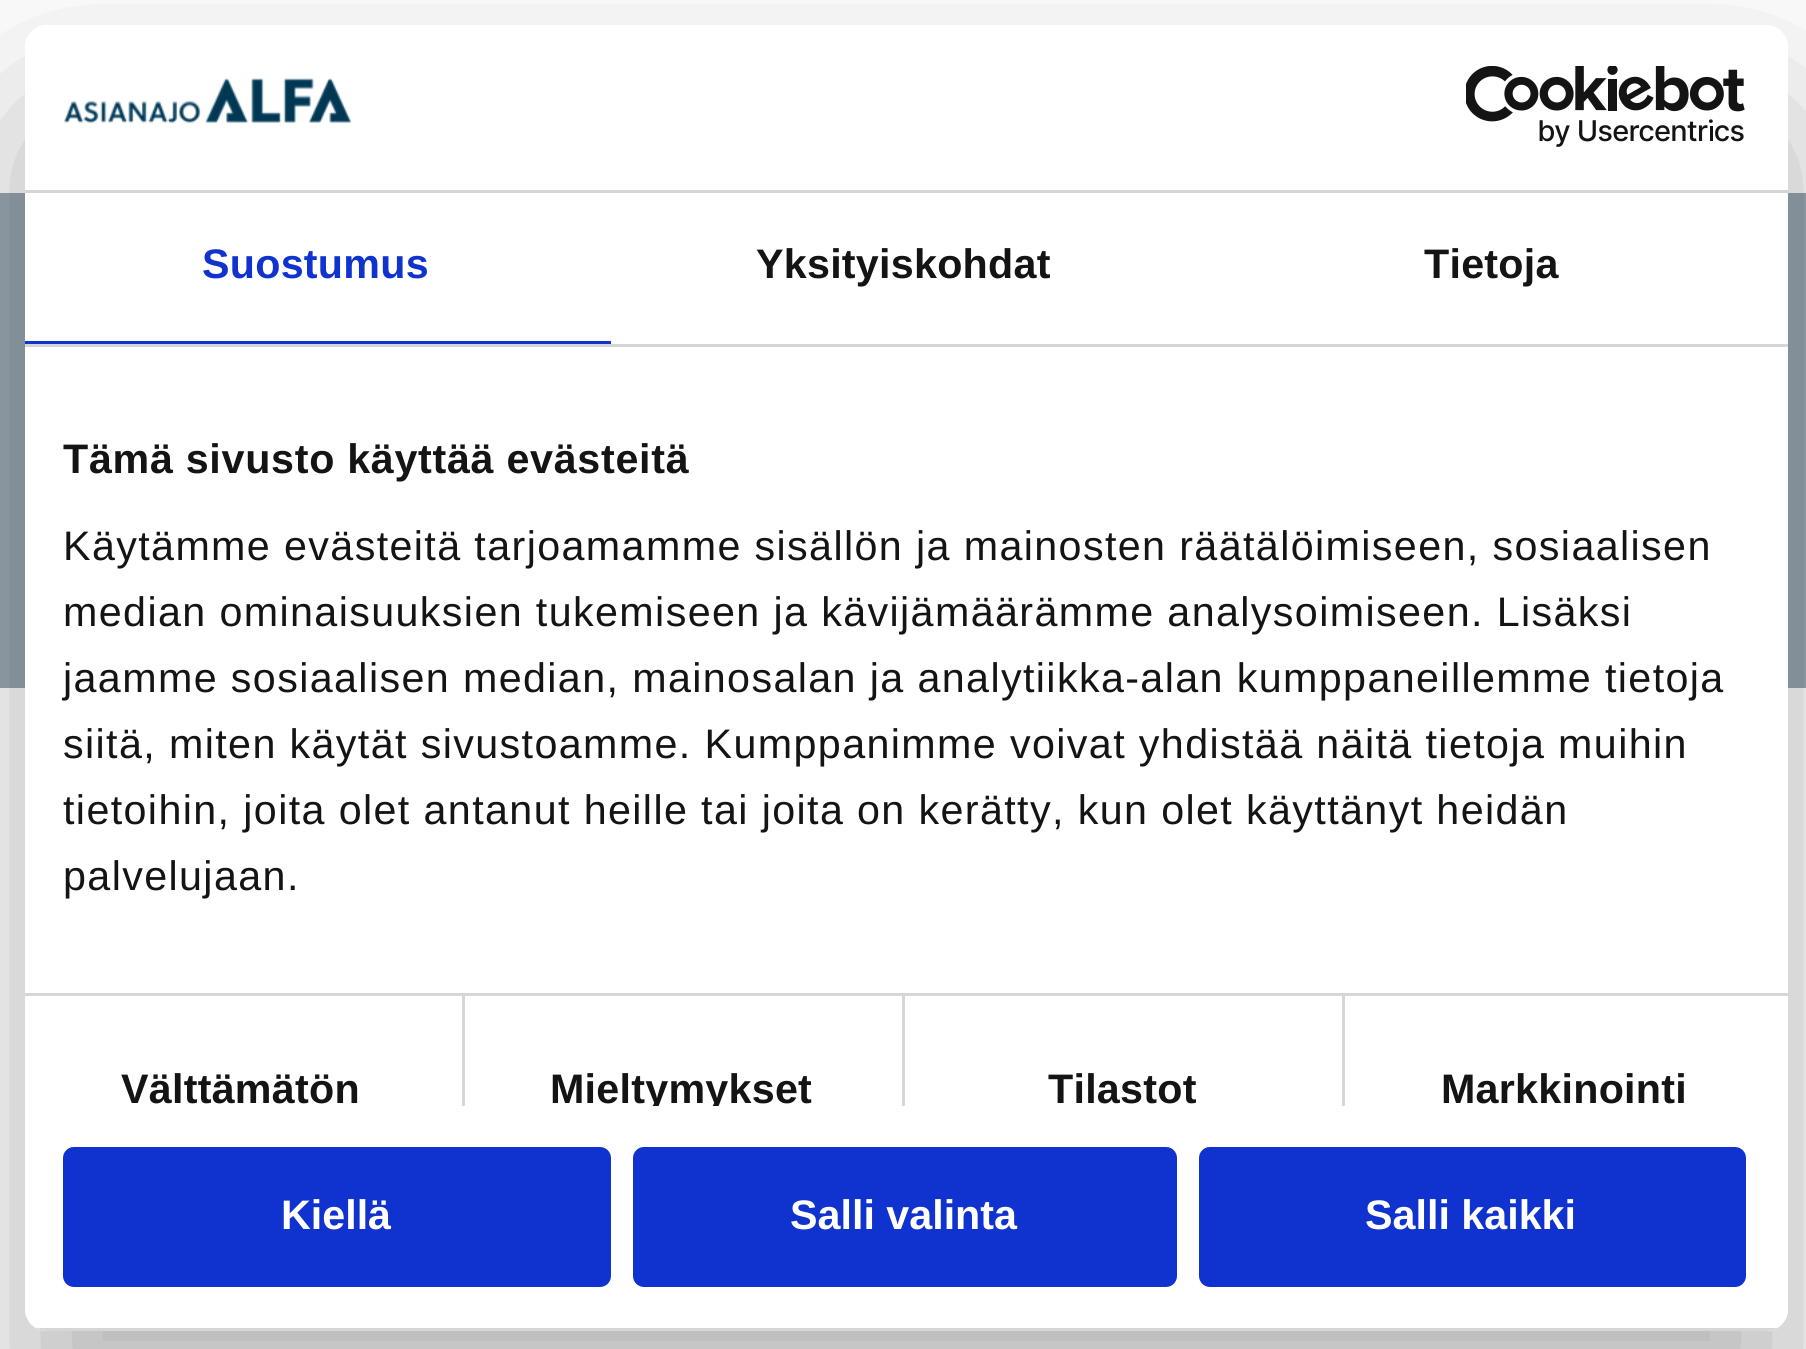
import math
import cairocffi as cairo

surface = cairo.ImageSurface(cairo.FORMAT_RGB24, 1806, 1349)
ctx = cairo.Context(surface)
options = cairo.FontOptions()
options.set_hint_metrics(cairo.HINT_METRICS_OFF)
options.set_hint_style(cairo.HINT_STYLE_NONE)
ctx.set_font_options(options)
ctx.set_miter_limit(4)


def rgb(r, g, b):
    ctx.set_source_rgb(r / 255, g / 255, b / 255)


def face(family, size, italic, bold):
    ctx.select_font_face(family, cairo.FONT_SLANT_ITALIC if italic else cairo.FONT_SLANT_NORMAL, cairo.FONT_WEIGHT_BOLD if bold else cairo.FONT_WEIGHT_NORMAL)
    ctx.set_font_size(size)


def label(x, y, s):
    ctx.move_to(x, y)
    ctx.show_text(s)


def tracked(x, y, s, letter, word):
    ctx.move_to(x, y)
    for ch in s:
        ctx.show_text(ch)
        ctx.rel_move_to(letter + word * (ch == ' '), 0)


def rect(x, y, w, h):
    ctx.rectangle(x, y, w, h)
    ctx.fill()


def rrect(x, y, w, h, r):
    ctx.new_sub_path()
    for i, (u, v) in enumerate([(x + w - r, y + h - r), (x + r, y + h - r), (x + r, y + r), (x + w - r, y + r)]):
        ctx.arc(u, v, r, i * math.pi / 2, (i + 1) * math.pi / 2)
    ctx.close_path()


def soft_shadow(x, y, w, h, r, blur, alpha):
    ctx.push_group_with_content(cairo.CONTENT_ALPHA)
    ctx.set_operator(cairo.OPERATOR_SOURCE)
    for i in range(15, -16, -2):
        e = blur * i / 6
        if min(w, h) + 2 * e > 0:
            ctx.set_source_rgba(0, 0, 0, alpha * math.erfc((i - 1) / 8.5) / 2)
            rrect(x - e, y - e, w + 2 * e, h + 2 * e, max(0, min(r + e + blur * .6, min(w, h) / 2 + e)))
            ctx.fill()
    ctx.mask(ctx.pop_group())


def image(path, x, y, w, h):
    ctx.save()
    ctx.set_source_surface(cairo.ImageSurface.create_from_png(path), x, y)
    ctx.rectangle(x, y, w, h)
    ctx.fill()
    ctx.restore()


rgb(255, 255, 255)
ctx.paint()
rgb(153, 167, 179)
rect(0, 193, 1806, 495)
ctx.save()
ctx.set_fill_rule(cairo.FILL_RULE_EVEN_ODD)
ctx.new_path()
ctx.move_to(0, 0)
ctx.line_to(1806, 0)
ctx.line_to(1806, 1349)
ctx.line_to(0, 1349)
ctx.close_path()
ctx.move_to(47, 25)
ctx.line_to(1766, 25)
ctx.curve_to(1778, 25, 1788, 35, 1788, 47)
ctx.line_to(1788, 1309)
ctx.curve_to(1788, 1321, 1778, 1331, 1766, 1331)
ctx.line_to(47, 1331)
ctx.curve_to(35, 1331, 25, 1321, 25, 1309)
ctx.line_to(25, 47)
ctx.curve_to(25, 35, 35, 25, 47, 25)
ctx.close_path()
ctx.clip()
rgb(0, 0, 0)
soft_shadow(25, 113, 1763, 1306, 22, 93.5, 0.3)
ctx.restore()
rgb(255, 255, 255)
rrect(25, 25, 1763, 1306, 22)
ctx.fill()
rgb(214, 214, 214)
rect(25, 190, 1763, 3)
image('image0.png', 64, 78, 288, 46)
image('image1.png', 1466, 66, 279, 81)
rect(25, 344, 1763, 3)
rgb(16, 50, 207)
rect(25, 341, 586, 3)
face('Liberation Sans', 41.25, 0, 1)
tracked(202, 278, 'Suostumus', 0.25, 0)
rgb(20, 20, 20)
tracked(756, 278, 'Yksityiskohdat', 0.25, 0)
tracked(1424, 278, 'Tietoja', 0.25, 0)
rgb(214, 214, 214)
rect(25, 993, 1763, 3)
rgb(20, 20, 20)
tracked(63, 473, 'Tämä sivusto käyttää evästeitä', 0.7, 0)
face('Liberation Sans', 41.25, 0, 0)
tracked(63, 560, 'Käytämme evästeitä tarjoamamme sisällön ja mainosten räätälöimiseen, sosiaalisen', 1.38, 0)
tracked(63, 626, 'median ominaisuuksien tukemiseen ja kävijämäärämme analysoimiseen. Lisäksi', 1.38, 0)
tracked(63, 692, 'jaamme sosiaalisen median, mainosalan ja analytiikka-alan kumppaneillemme tietoja', 1.38, 0)
tracked(63, 758, 'siitä, miten käytät sivustoamme. Kumppanimme voivat yhdistää näitä tietoja muihin', 1.38, 0)
tracked(63, 824, 'tietoihin, joita olet antanut heille tai joita on kerätty, kun olet käyttänyt heidän', 1.38, 0)
tracked(63, 890, 'palvelujaan.', 1.38, 0)
rgb(214, 214, 214)
rect(462, 996, 3, 110)
face('Liberation Sans', 41.25, 0, 1)
rgb(20, 20, 20)
tracked(121, 1103, 'Välttämätön', 0.25, 0)
rgb(214, 214, 214)
rect(902, 996, 3, 110)
ctx.save()
ctx.rectangle(25, 347, 1763, 759)
ctx.clip()
rgb(20, 20, 20)
tracked(550, 1103, 'Mieltymykset', 0.25, 0)
ctx.restore()
rect(1342, 996, 3, 110)
rgb(20, 20, 20)
tracked(1048, 1103, 'Tilastot', 0.25, 0)
tracked(1441, 1103, 'Markkinointi', 0.25, 0)
ctx.save()
rrect(25, 25, 1763, 1306, 22)
ctx.clip()
rgb(214, 214, 214)
rect(36, 1328, 1741, 3)
ctx.restore()
rgb(16, 50, 207)
rrect(66, 1150, 542, 134, 8)
ctx.fill_preserve()
ctx.set_line_width(6)
ctx.stroke()
rgb(255, 255, 255)
label(281, 1229, 'Kiellä')
rgb(16, 50, 207)
rrect(636, 1150, 538, 134, 8)
ctx.fill_preserve()
ctx.stroke()
rgb(255, 255, 255)
label(790, 1229, 'Salli valinta')
rgb(16, 50, 207)
rrect(1202, 1150, 541, 134, 8)
ctx.fill_preserve()
ctx.stroke()
rgb(255, 255, 255)
label(1365, 1229, 'Salli kaikki')
surface.write_to_png('render.png')
